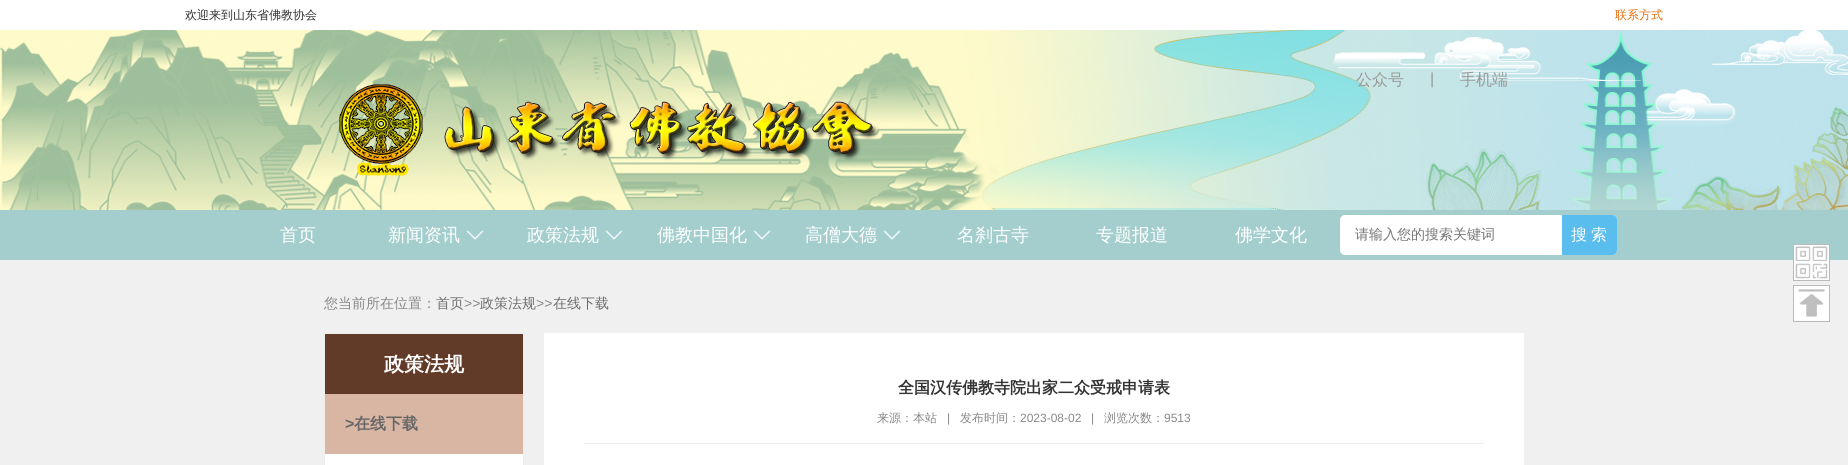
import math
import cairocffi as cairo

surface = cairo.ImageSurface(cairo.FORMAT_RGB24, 1848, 465)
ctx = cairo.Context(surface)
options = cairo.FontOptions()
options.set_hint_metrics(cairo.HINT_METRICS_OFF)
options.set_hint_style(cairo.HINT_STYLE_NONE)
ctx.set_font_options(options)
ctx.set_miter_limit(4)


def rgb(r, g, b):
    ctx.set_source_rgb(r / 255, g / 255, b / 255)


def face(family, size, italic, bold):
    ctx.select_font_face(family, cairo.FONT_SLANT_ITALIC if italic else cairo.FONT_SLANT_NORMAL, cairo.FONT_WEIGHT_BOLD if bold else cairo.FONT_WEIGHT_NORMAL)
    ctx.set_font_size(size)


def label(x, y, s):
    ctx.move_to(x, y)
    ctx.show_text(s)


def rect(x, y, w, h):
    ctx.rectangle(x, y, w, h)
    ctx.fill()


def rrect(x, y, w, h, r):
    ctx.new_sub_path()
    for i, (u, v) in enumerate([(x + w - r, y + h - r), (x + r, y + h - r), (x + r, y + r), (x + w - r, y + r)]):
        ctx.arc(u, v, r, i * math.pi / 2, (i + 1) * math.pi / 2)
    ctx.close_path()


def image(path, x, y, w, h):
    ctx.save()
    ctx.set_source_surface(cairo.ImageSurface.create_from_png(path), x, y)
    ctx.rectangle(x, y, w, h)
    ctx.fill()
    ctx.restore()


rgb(240, 240, 240)
ctx.paint()
rgb(255, 255, 255)
rect(0, 0, 1848, 30)
face('WenQuanYi Zen Hei Medium', 12, 0, 0)
rgb(51, 51, 51)
label(185, 19, '欢迎来到山东省佛教协会')
rgb(230, 109, 12)
label(1615, 19, '联系方式')
image('image0.png', 0, 30, 1848, 180)
face('WenQuanYi Zen Hei Medium', 16, 0, 0)
rgb(153, 153, 153)
label(1356, 85, '公众号')
face('Liberation Sans', 16, 0, 0)
label(1430, 84, '|')
face('WenQuanYi Zen Hei Medium', 16, 0, 0)
label(1460, 85, '手机端')
image('image1.png', 339, 84, 540, 92)
rgb(163, 206, 205)
rect(0, 210, 1848, 50)
face('WenQuanYi Zen Hei Medium', 18, 0, 0)
rgb(255, 255, 255)
label(280, 241, '首页')
label(388, 241, '新闻资讯')
image('image2.png', 466, 230, 18, 10)
label(527, 241, '政策法规')
image('image2.png', 605, 230, 18, 10)
label(657, 241, '佛教中国化')
image('image2.png', 753, 230, 18, 10)
label(805, 241, '高僧大德')
image('image2.png', 883, 230, 18, 10)
label(957, 241, '名刹古寺')
label(1096, 241, '专题报道')
label(1235, 241, '佛学文化')
rrect(1340, 215, 277, 40, 5)
ctx.fill()
face('WenQuanYi Zen Hei Medium', 14, 0, 0)
rgb(117, 117, 117)
label(1355, 239, '请输入您的搜索关键词')
rgb(89, 189, 238)
ctx.new_path()
ctx.move_to(1562, 215)
ctx.line_to(1612, 215)
ctx.curve_to(1615, 215, 1617, 217, 1617, 220)
ctx.line_to(1617, 250)
ctx.curve_to(1617, 253, 1615, 255, 1612, 255)
ctx.line_to(1562, 255)
ctx.close_path()
ctx.fill()
face('WenQuanYi Zen Hei Medium', 16, 0, 0)
rgb(255, 255, 255)
label(1571, 240, '搜')
label(1591, 240, '索')
ctx.rectangle(1793.5, 244.5, 36, 36)
ctx.fill_preserve()
rgb(186, 186, 186)
ctx.set_line_width(1)
ctx.stroke()
image('image3.png', 1795, 246, 33, 33)
rgb(255, 255, 255)
ctx.rectangle(1793.5, 285.5, 36, 36)
ctx.fill_preserve()
rgb(186, 186, 186)
ctx.stroke()
image('image4.png', 1798, 289, 27, 28)
face('WenQuanYi Zen Hei Medium', 14, 0, 0)
rgb(136, 136, 136)
label(324, 308, '您当前所在位置：')
rgb(110, 110, 110)
label(436, 308, '首页')
face('Liberation Sans', 14, 0, 0)
rgb(136, 136, 136)
label(464, 308, '>>')
face('WenQuanYi Zen Hei Medium', 14, 0, 0)
rgb(110, 110, 110)
label(480, 308, '政策法规')
face('Liberation Sans', 14, 0, 0)
rgb(136, 136, 136)
label(536, 308, '>>')
face('WenQuanYi Zen Hei Medium', 14, 0, 0)
rgb(110, 110, 110)
label(553, 308, '在线下载')
ctx.rectangle(324.5, 333.5, 199, 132)
rgb(237, 237, 237)
ctx.stroke()
rgb(97, 58, 40)
rect(325, 334, 198, 60)
face('WenQuanYi Zen Hei', 20, 0, 1)
rgb(255, 255, 255)
label(384, 371, '政策法规')
rgb(217, 181, 164)
rect(325, 394, 198, 60)
face('Liberation Sans', 16, 0, 1)
rgb(102, 102, 102)
label(345, 429, '>')
face('WenQuanYi Zen Hei', 16, 0, 1)
label(354, 429, '在线下载')
rgb(255, 255, 255)
rect(325, 454, 198, 11)
rect(544, 333, 980, 132)
rgb(237, 237, 237)
rect(584, 443, 900, 1)
rgb(51, 51, 51)
label(898, 393, '全国汉传佛教寺院出家二众受戒申请表')
face('WenQuanYi Zen Hei Medium', 12, 0, 0)
rgb(136, 136, 136)
label(877, 422, '来源：本站')
face('Liberation Sans', 12, 0, 0)
label(947, 422, '|')
face('WenQuanYi Zen Hei Medium', 12, 0, 0)
label(960, 422, '发布时间：')
face('Liberation Sans', 12, 0, 0)
label(1020, 422, '2023-08-02')
label(1091, 422, '|')
face('WenQuanYi Zen Hei Medium', 12, 0, 0)
label(1104, 422, '浏览次数：')
face('Liberation Sans', 12, 0, 0)
label(1164, 422, '9513')
surface.write_to_png('render.png')
